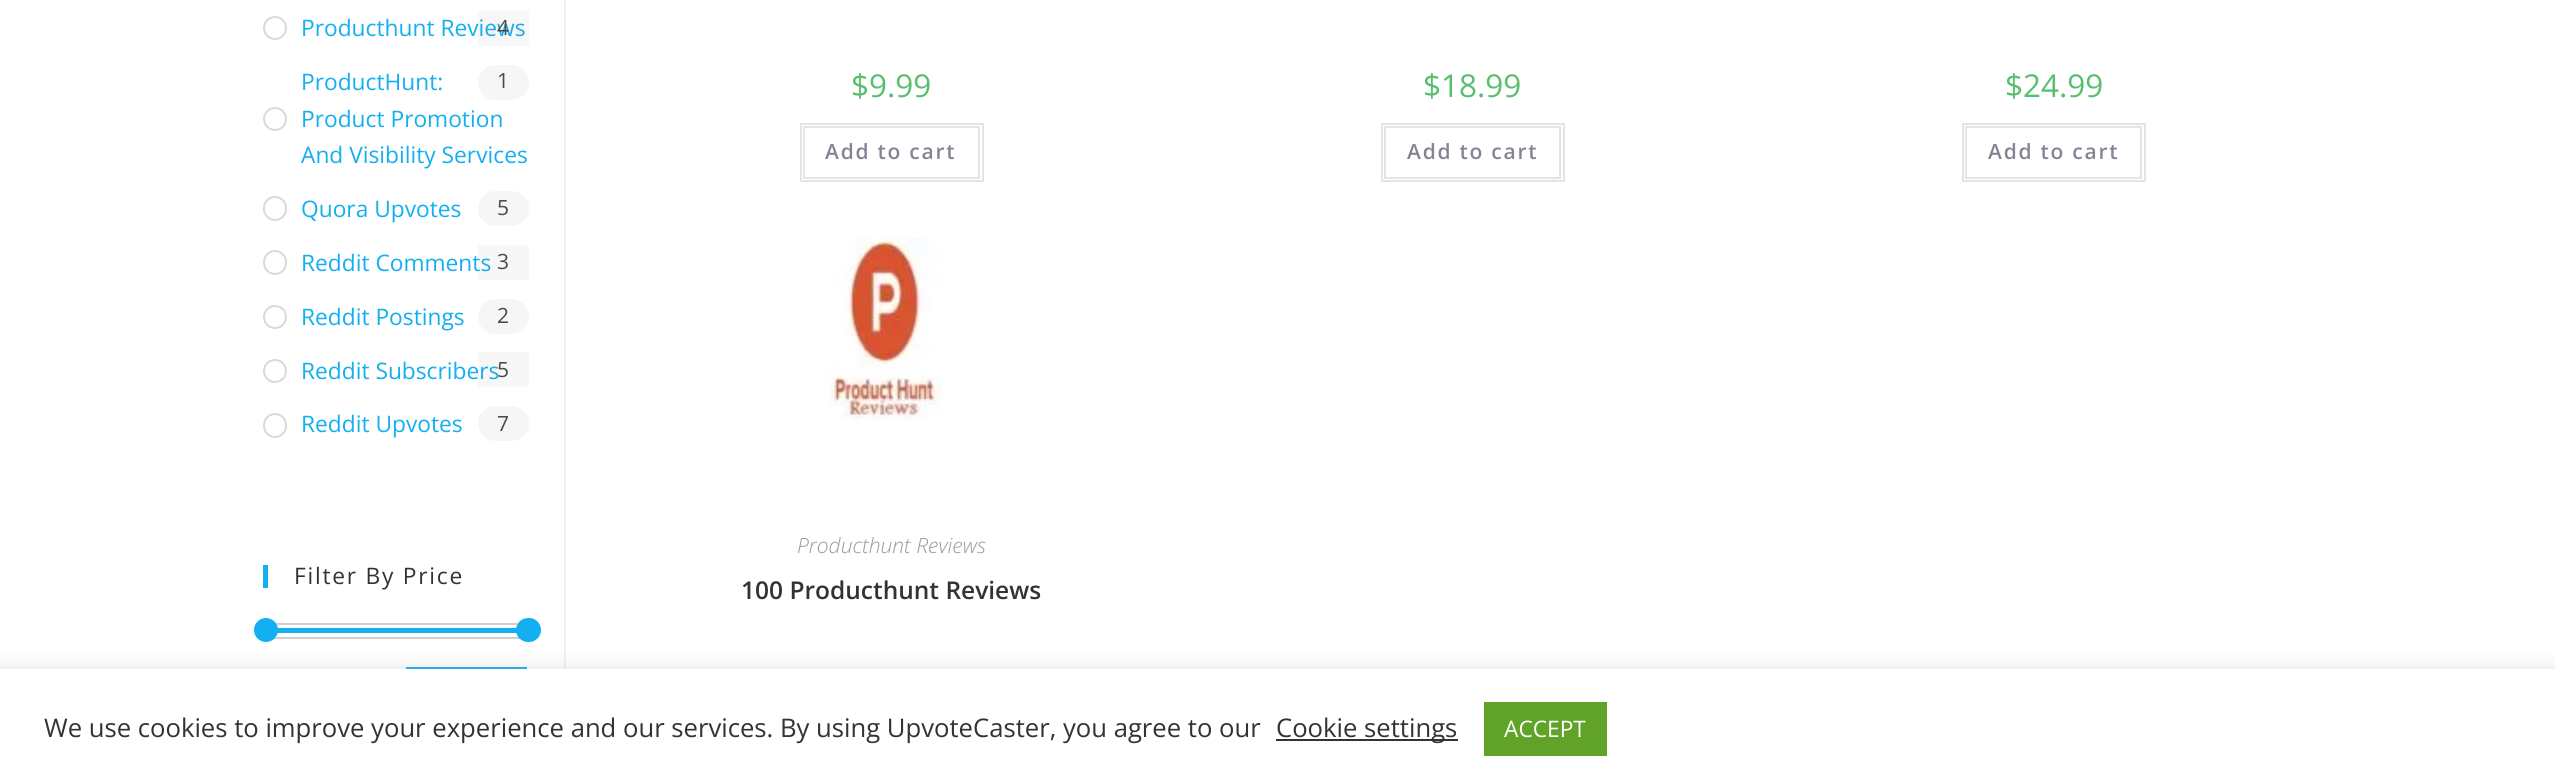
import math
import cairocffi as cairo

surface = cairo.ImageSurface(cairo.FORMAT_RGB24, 2555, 779)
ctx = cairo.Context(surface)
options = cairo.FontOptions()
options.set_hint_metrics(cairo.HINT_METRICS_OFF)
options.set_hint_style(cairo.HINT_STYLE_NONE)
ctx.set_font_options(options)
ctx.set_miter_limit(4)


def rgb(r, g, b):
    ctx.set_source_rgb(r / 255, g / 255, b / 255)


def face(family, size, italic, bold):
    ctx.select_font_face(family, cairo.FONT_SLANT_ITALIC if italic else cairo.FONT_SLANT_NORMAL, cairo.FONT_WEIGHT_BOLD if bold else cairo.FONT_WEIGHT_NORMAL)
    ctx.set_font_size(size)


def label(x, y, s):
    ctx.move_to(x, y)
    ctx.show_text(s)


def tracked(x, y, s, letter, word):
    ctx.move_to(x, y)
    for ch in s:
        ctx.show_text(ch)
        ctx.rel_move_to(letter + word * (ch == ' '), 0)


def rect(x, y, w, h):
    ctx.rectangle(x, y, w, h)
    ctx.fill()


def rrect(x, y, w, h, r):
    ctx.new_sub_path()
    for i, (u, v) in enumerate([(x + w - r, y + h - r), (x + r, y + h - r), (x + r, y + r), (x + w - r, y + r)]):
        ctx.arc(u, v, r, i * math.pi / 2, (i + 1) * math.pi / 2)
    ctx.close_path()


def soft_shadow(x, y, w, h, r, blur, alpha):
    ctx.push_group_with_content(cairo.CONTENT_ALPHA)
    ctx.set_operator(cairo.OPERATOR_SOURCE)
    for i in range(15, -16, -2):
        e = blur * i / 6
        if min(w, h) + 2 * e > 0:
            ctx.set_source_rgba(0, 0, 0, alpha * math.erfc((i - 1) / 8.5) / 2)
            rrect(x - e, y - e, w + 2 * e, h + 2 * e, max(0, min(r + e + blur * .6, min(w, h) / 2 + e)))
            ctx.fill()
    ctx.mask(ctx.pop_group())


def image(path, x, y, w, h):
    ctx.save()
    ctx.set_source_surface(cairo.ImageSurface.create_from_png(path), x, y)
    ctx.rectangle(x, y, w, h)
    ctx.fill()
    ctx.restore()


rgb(255, 255, 255)
ctx.paint()
ctx.arc(275, 28, 11, 0, 2 * math.pi)
rgb(217, 217, 217)
ctx.stroke()
face('Open Sans', 22.75, 0, 0)
rgb(19, 175, 240)
label(301, 36, 'Producthunt Reviews')
ctx.set_source_rgba(0.329, 0.329, 0.329, 0.05)
rect(478, 11, 51, 35)
face('Open Sans', 21, 0, 0)
rgb(74, 74, 74)
label(497, 35, '4')
face('Open Sans', 22.75, 0, 0)
rgb(19, 175, 240)
label(301, 90, 'ProductHunt:')
ctx.new_path()
ctx.arc(275, 119, 11, 0, 2 * math.pi)
rgb(217, 217, 217)
ctx.stroke()
rgb(19, 175, 240)
label(301, 127, 'Product Promotion')
label(301, 163, 'And Visibility Services')
rgb(246, 246, 246)
rrect(478, 65, 51, 35, 17.5)
ctx.fill()
face('Open Sans', 21, 0, 0)
rgb(74, 74, 74)
label(497, 88, '1')
rrect(264, 197, 22, 23, 11)
rgb(217, 217, 217)
ctx.stroke()
face('Open Sans', 22.75, 0, 0)
rgb(19, 175, 240)
label(301, 217, 'Quora Upvotes')
rgb(246, 246, 246)
rrect(478, 191, 51, 35, 17.5)
ctx.fill()
face('Open Sans', 21, 0, 0)
rgb(74, 74, 74)
label(497, 215, '5')
rrect(264, 251, 22, 23, 11)
rgb(217, 217, 217)
ctx.stroke()
face('Open Sans', 22.75, 0, 0)
rgb(19, 175, 240)
label(301, 271, 'Reddit Comments')
ctx.set_source_rgba(0.329, 0.329, 0.329, 0.05)
rect(478, 245, 51, 35)
face('Open Sans', 21, 0, 0)
rgb(74, 74, 74)
label(497, 269, '3')
ctx.new_path()
ctx.arc(275, 317, 11, 0, 2 * math.pi)
rgb(217, 217, 217)
ctx.stroke()
face('Open Sans', 22.75, 0, 0)
rgb(19, 175, 240)
label(301, 325, 'Reddit Postings')
rgb(246, 246, 246)
rrect(478, 299, 51, 35, 17.5)
ctx.fill()
face('Open Sans', 21, 0, 0)
rgb(74, 74, 74)
label(497, 323, '2')
ctx.new_path()
ctx.arc(275, 371, 11, 0, 2 * math.pi)
rgb(217, 217, 217)
ctx.stroke()
face('Open Sans', 22.75, 0, 0)
rgb(19, 175, 240)
label(301, 379, 'Reddit Subscribers')
ctx.set_source_rgba(0.329, 0.329, 0.329, 0.05)
rect(478, 352, 51, 35)
face('Open Sans', 21, 0, 0)
rgb(74, 74, 74)
label(497, 377, '5')
rrect(264, 414, 22, 23, 11)
rgb(217, 217, 217)
ctx.stroke()
face('Open Sans', 22.75, 0, 0)
rgb(19, 175, 240)
label(301, 432, 'Reddit Upvotes')
rgb(246, 246, 246)
rrect(478, 406, 51, 35, 17.5)
ctx.fill()
face('Open Sans', 21, 0, 0)
rgb(74, 74, 74)
label(497, 431, '7')
rgb(19, 175, 240)
rect(263, 565, 5, 23)
face('Open Sans', 22.75, 0, 0)
rgb(51, 51, 51)
tracked(294, 584, 'Filter By Price', 1.75, 0)
ctx.rectangle(264, 624, 264, 14)
rgb(208, 208, 208)
ctx.stroke()
rgb(19, 175, 240)
rect(277, 628, 240, 5)
ctx.arc(266, 630, 12, 0, 2 * math.pi)
ctx.fill()
rrect(516, 618, 25, 24, 12)
ctx.fill()
rect(406, 667, 121, 2)
rgb(241, 241, 241)
rect(564, 0, 2, 669)
face('Open Sans', 31.5, 0, 0)
rgb(87, 191, 109)
label(851, 97, '$9.99')
ctx.rectangle(801, 124, 182, 57)
rgb(228, 228, 228)
ctx.stroke()
ctx.rectangle(804, 127, 175, 51)
ctx.stroke()
face('Open Sans SemiBold', 21, 0, 0)
rgb(132, 132, 148)
tracked(825, 159, 'Add to cart', 1.75, 0)
face('Open Sans', 31.5, 0, 0)
rgb(87, 191, 109)
label(1423, 97, '$18.99')
ctx.rectangle(1382, 124, 182, 57)
rgb(228, 228, 228)
ctx.stroke()
ctx.rectangle(1385, 127, 175, 51)
ctx.stroke()
face('Open Sans SemiBold', 21, 0, 0)
rgb(132, 132, 148)
tracked(1407, 159, 'Add to cart', 1.75, 0)
face('Open Sans', 31.5, 0, 0)
rgb(87, 191, 109)
label(2005, 97, '$24.99')
ctx.rectangle(1963, 124, 182, 57)
rgb(228, 228, 228)
ctx.stroke()
ctx.rectangle(1966, 127, 175, 51)
ctx.stroke()
face('Open Sans SemiBold', 21, 0, 0)
rgb(132, 132, 148)
tracked(1988, 159, 'Add to cart', 1.75, 0)
image('image0.png', 829, 238, 113, 182)
face('Open Sans Light', 21, 1, 0)
rgb(153, 153, 153)
label(797, 553, 'Producthunt Reviews')
face('Open Sans SemiBold', 24.5, 0, 0)
rgb(51, 51, 51)
label(741, 599, '100 Producthunt Reviews')
rgb(172, 171, 171)
soft_shadow(0, 667, 2555, 112, 0, 9, 0.3)
rgb(255, 255, 255)
rect(0, 669, 2555, 110)
face('Open Sans', 25.65, 0, 0)
rgb(51, 51, 51)
label(44, 737, 'We use cookies to improve your experience and our services. By using UpvoteCaster, you agree to our')
rect(1276, 739, 182, 2)
label(1276, 737, 'Cookie settings')
rgb(97, 162, 41)
rect(1484, 702, 123, 54)
face('Open Sans', 22.75, 0, 0)
rgb(255, 255, 255)
label(1504, 737, 'ACCEPT')
surface.write_to_png('render.png')
